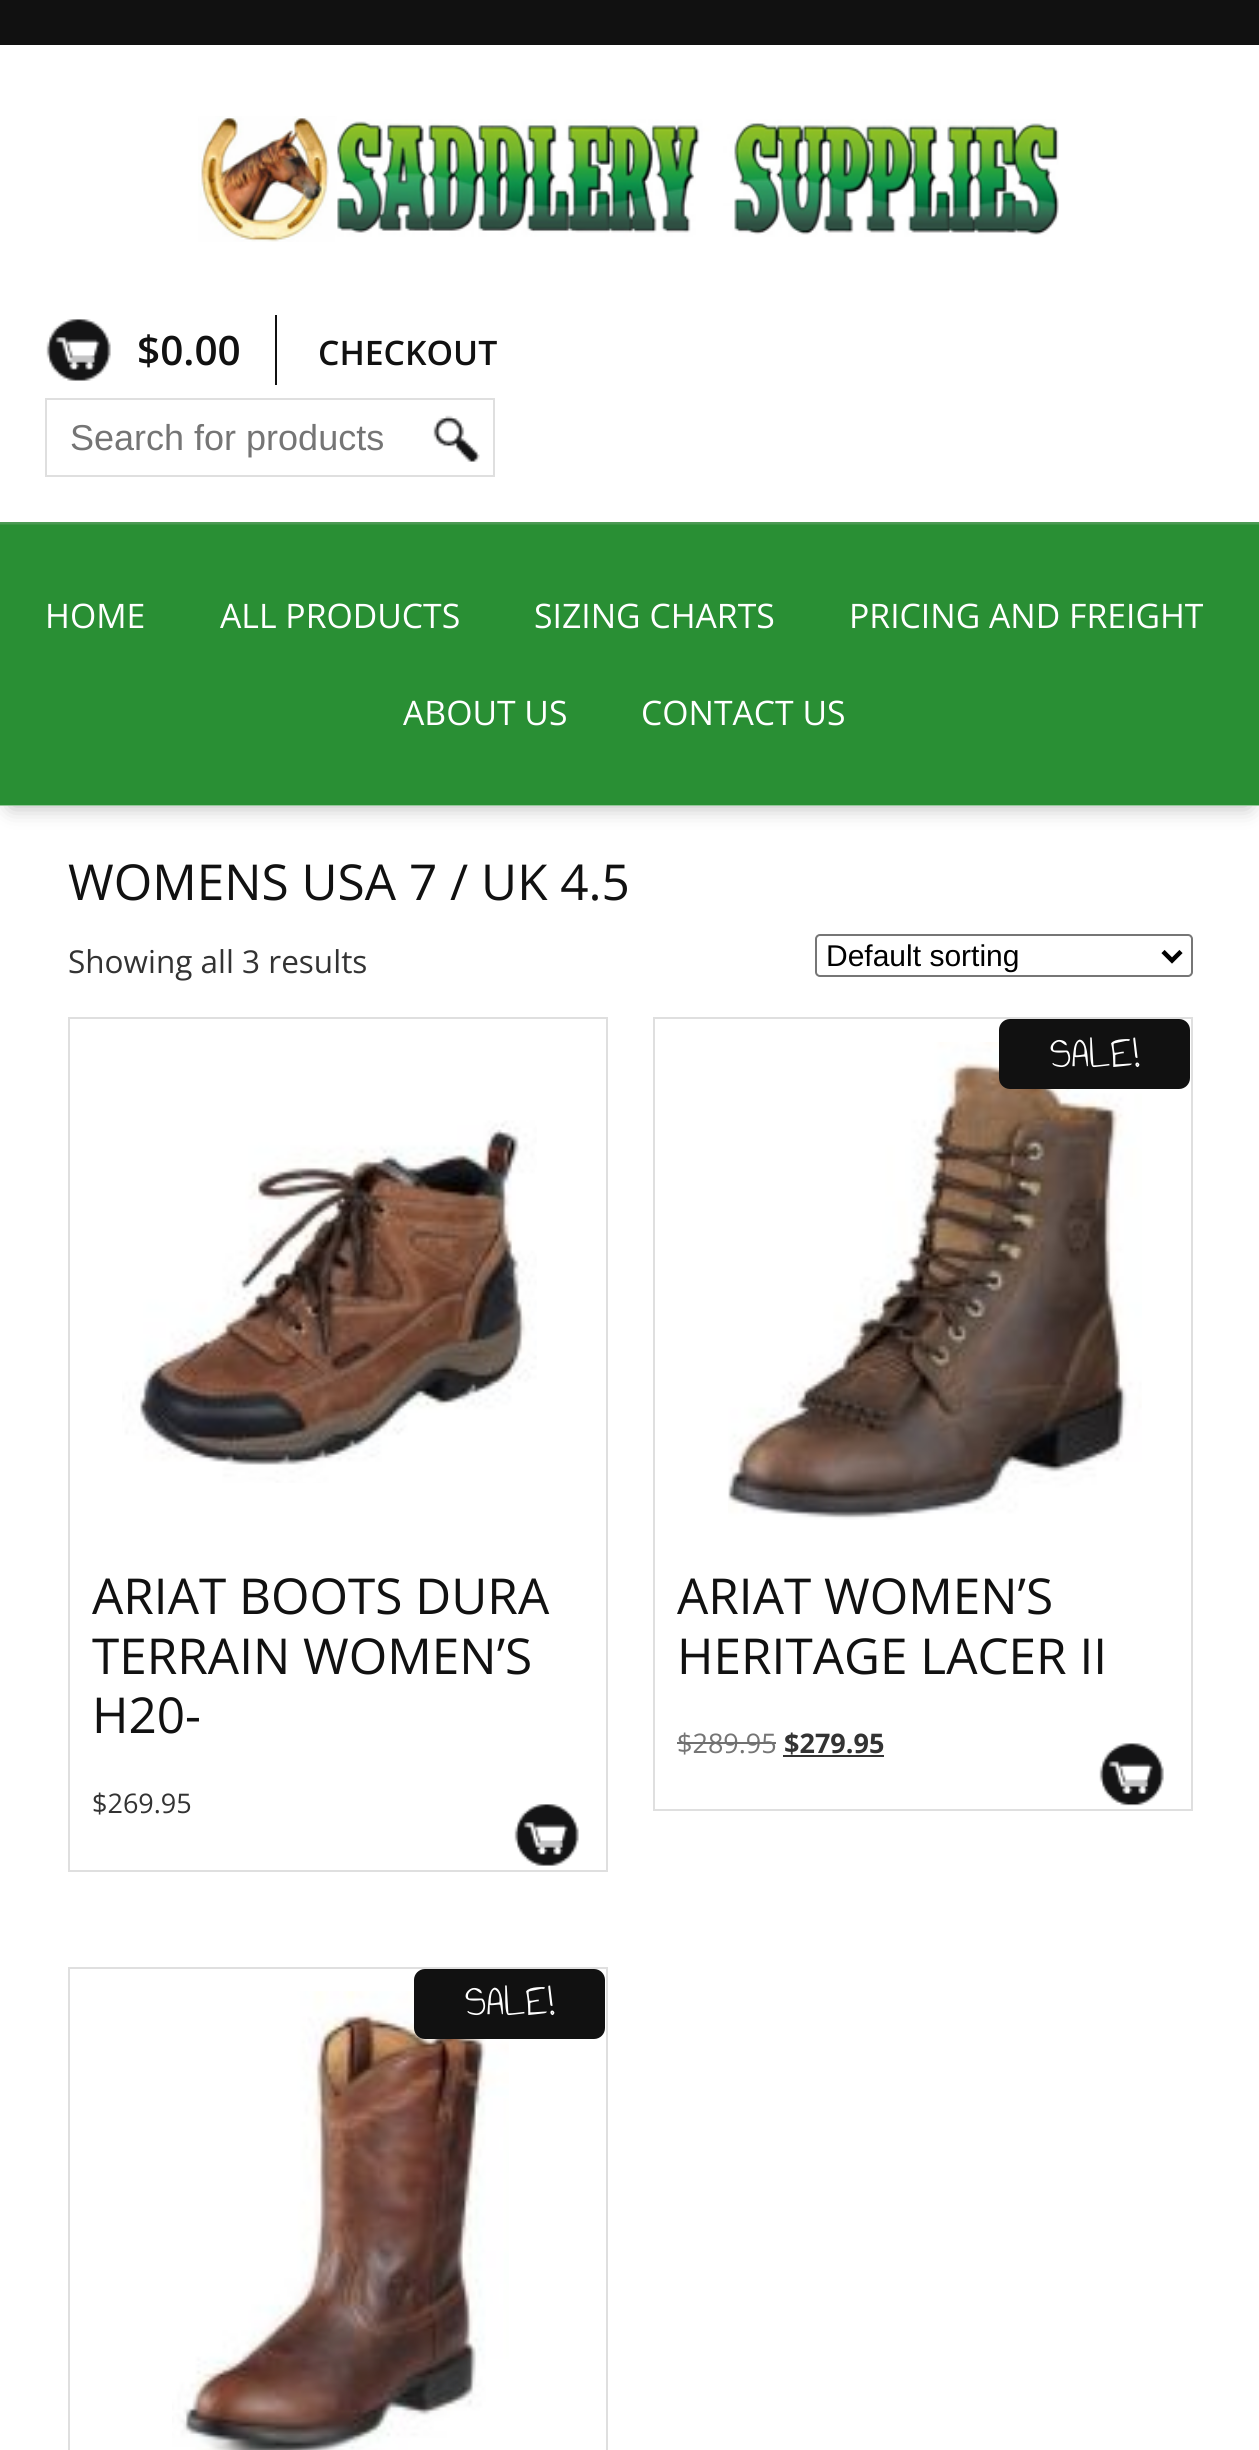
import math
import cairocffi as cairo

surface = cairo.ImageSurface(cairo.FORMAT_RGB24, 1259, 2450)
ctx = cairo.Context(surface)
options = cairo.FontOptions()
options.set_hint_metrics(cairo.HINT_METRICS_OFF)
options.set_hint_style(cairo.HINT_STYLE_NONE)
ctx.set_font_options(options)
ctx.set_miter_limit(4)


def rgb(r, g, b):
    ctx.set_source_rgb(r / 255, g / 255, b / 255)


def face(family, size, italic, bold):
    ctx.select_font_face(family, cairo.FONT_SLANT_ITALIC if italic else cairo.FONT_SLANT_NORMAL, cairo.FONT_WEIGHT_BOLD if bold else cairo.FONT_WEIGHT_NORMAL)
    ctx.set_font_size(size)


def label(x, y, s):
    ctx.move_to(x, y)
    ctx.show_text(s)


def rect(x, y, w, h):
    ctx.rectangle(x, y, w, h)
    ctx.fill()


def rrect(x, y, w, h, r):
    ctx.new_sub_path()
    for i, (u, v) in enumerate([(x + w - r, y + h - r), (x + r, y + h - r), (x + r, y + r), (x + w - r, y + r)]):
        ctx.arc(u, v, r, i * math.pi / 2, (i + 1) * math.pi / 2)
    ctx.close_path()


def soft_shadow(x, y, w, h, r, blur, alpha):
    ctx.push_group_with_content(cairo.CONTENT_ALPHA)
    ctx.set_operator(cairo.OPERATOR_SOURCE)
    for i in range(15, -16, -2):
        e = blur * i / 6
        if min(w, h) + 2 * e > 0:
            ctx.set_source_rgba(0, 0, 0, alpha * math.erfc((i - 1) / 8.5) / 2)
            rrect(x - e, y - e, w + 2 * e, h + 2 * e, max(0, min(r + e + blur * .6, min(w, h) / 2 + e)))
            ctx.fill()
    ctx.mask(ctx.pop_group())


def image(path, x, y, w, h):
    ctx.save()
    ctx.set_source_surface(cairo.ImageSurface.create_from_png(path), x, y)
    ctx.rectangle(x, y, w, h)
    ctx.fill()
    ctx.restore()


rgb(255, 255, 255)
ctx.paint()
rgb(17, 17, 17)
rect(0, 0, 1259, 45)
image('image0.png', 198, 116, 861, 126)
image('image1.png', 46, 319, 65, 62)
rect(275, 315, 2, 70)
face('Open Sans SemiBold', 40.5, 0, 0)
label(137, 365, '$0.00')
face('Open Sans SemiBold', 33.75, 0, 0)
label(318, 365, 'CHECKOUT')
image('image2.png', 433, 415, 47, 47)
ctx.rectangle(46, 399, 448, 77)
rgb(223, 223, 223)
ctx.stroke()
face('Liberation Sans', 36, 0, 0)
rgb(117, 117, 117)
label(70, 450, 'Search for products')
ctx.save()
ctx.set_fill_rule(cairo.FILL_RULE_EVEN_ODD)
ctx.new_path()
ctx.move_to(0, 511)
ctx.line_to(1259, 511)
ctx.line_to(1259, 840)
ctx.line_to(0, 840)
ctx.close_path()
ctx.move_to(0, 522)
ctx.line_to(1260, 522)
ctx.line_to(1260, 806)
ctx.line_to(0, 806)
ctx.close_path()
ctx.clip()
rgb(0, 0, 0)
soft_shadow(11, 545, 1238, 261, 0, 11, 0.3)
ctx.restore()
image('image3.png', 0, 522, 1259, 284)
face('Open Sans', 33.75, 0, 0)
rgb(255, 255, 255)
label(45, 628, 'HOME')
label(220, 628, 'ALL PRODUCTS')
label(534, 628, 'SIZING CHARTS')
label(849, 628, 'PRICING AND FREIGHT')
label(403, 725, 'ABOUT US')
label(641, 725, 'CONTACT US')
face('Open Sans', 49.5, 0, 0)
rgb(17, 17, 17)
label(68, 900, 'WOMENS USA 7 / UK 4.5')
face('Open Sans', 31.5, 0, 0)
rgb(51, 51, 51)
label(68, 973, 'Showing all 3 results')
rrect(816, 935, 376, 41, 4)
rgb(118, 118, 118)
ctx.stroke()
ctx.new_path()
ctx.move_to(1163, 951.5)
ctx.line_to(1172, 960.5)
ctx.line_to(1181, 951.5)
rgb(0, 0, 0)
ctx.set_line_width(4.5)
ctx.stroke()
face('Liberation Sans', 30, 0, 0)
label(826, 966, 'Default sorting')
ctx.rectangle(69, 1018, 538, 853)
rgb(223, 223, 223)
ctx.set_line_width(2)
ctx.stroke()
image('image4.png', 122, 1120, 415, 363)
face('Open Sans', 49.5, 0, 0)
rgb(17, 17, 17)
label(92, 1614, 'ARIAT BOOTS DURA')
label(92, 1674, 'TERRAIN WOMEN’S')
label(92, 1733, 'H20-')
face('Open Sans', 27, 0, 0)
rgb(51, 51, 51)
label(92, 1813, '$269.95')
image('image5.png', 514, 1804, 65, 62)
ctx.rectangle(654, 1018, 538, 792)
rgb(223, 223, 223)
ctx.stroke()
image('image6.png', 728, 1042, 414, 478)
rgb(17, 17, 17)
rrect(999, 1019, 191, 70, 11)
ctx.fill()
face('Annie Use Your Telescope', 45, 0, 0)
rgb(255, 255, 255)
label(1050, 1067, 'SALE!')
face('Open Sans', 49.5, 0, 0)
rgb(17, 17, 17)
label(677, 1614, 'ARIAT WOMEN’S')
label(677, 1674, 'HERITAGE LACER II')
face('Open Sans', 27, 0, 0)
rgb(117, 117, 117)
label(677, 1753, '$289.95')
rgb(112, 112, 112)
rect(677, 1742, 99, 2)
face('Open Sans', 27, 0, 1)
rgb(51, 51, 51)
label(784, 1753, '$279.95')
rect(783, 1755, 101, 2)
image('image7.png', 1099, 1743, 65, 63)
ctx.rectangle(69, 1968, 538, 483)
rgb(223, 223, 223)
ctx.stroke()
image('image8.png', 172, 1991, 337, 459)
rgb(17, 17, 17)
rrect(414, 1969, 191, 70, 11)
ctx.fill()
face('Annie Use Your Telescope', 45, 0, 0)
rgb(255, 255, 255)
label(465, 2015, 'SALE!')
surface.write_to_png('render.png')
